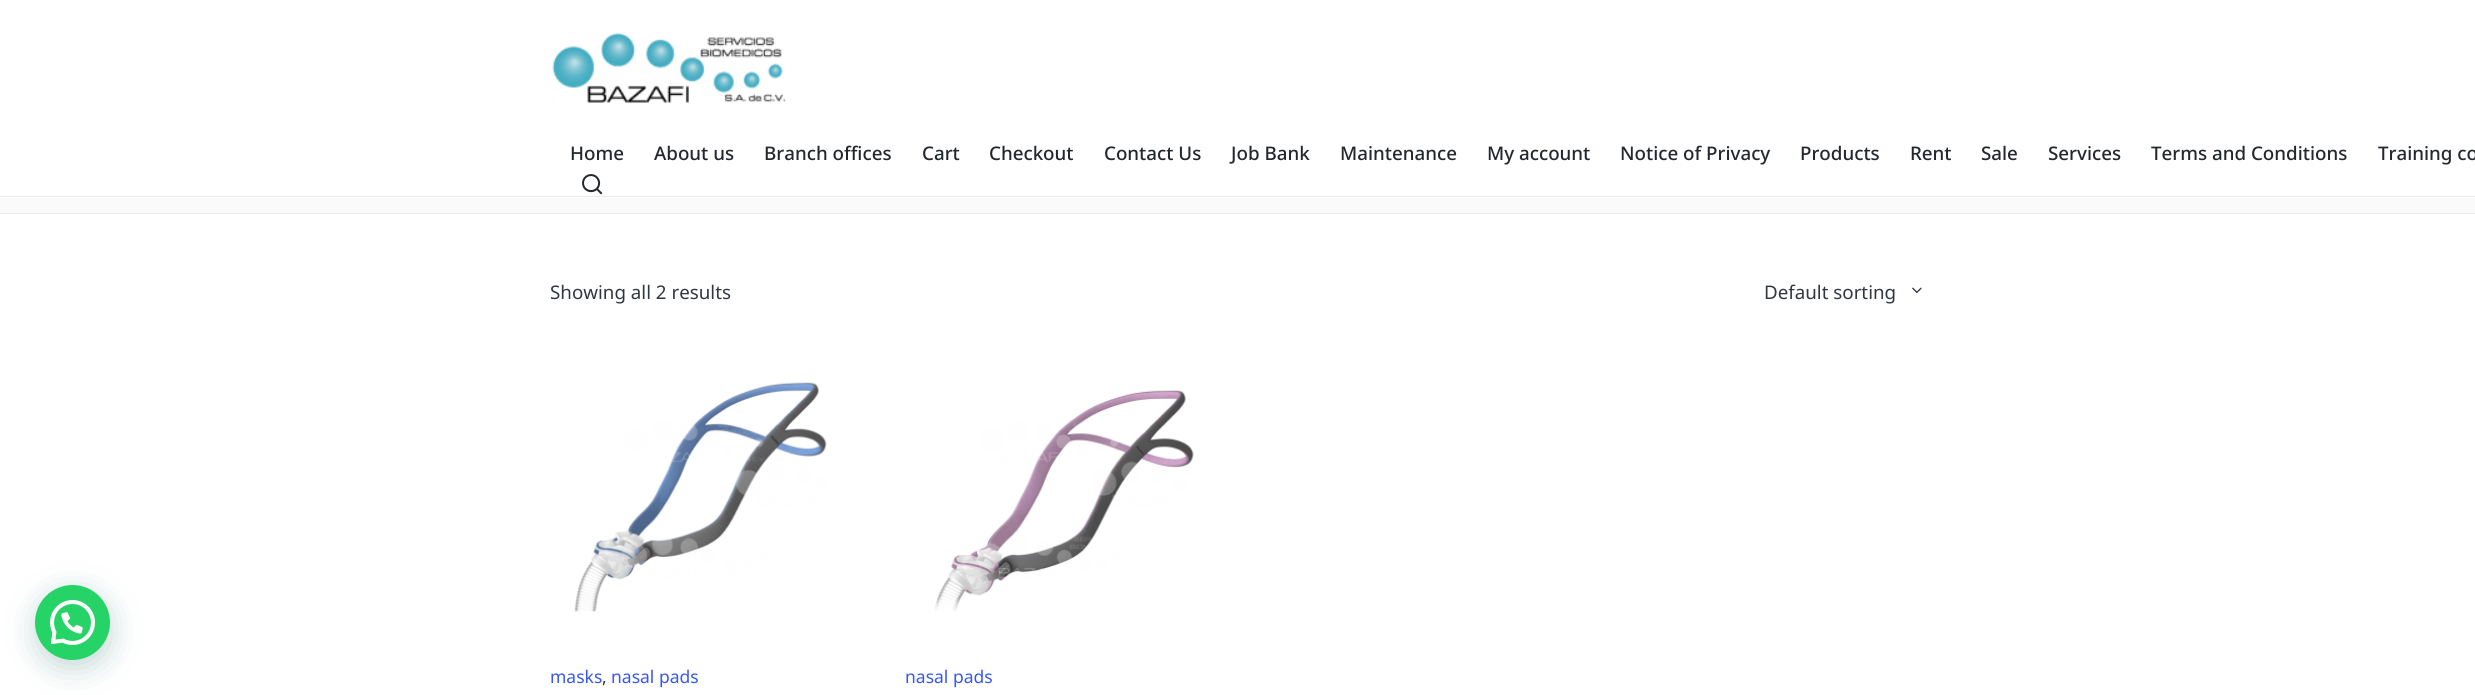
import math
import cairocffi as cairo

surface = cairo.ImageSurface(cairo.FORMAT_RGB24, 2475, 695)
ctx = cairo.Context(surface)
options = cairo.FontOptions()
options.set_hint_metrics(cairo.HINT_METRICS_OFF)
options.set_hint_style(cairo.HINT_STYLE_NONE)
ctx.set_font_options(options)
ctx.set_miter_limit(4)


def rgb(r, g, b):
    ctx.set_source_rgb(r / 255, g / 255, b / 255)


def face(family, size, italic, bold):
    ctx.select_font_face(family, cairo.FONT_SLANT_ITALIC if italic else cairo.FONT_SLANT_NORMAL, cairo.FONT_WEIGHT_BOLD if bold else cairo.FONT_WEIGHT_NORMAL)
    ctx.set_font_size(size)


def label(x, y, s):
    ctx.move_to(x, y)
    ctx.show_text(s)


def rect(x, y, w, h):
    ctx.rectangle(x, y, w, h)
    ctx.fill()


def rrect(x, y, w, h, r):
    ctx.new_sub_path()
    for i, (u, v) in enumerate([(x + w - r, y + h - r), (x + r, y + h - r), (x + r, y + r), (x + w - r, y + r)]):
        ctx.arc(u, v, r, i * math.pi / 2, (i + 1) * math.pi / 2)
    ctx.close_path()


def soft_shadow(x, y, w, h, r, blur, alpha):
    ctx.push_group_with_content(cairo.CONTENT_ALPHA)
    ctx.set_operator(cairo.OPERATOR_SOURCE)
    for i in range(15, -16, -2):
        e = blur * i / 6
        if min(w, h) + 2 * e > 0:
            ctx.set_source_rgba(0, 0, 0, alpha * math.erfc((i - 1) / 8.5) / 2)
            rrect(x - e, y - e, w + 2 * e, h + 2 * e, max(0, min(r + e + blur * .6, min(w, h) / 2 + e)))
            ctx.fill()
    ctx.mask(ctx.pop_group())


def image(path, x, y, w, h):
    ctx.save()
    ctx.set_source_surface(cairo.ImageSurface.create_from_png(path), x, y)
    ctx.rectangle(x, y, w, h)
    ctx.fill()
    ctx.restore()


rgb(255, 255, 255)
ctx.paint()
rgb(7, 94, 84)
soft_shadow(36, 593, 75, 75, 37.5, 15, 0.24)
rgb(37, 211, 102)
ctx.arc(72.5, 622.5, 37.5, 0, 2 * math.pi)
ctx.fill()
image('image0.png', 50, 600, 45, 45)
rgb(233, 233, 233)
rect(0, 196, 2475, 1)
image('image1.png', 552, 32, 234, 71)
face('Noto Sans Medium', 18.75, 0, 0)
rgb(35, 40, 45)
label(570, 160, 'Home')
label(654, 160, 'About us')
label(764, 160, 'Branch offices')
label(922, 160, 'Cart')
label(989, 160, 'Checkout')
label(1104, 160, 'Contact Us')
label(1231, 160, 'Job Bank')
label(1340, 160, 'Maintenance')
label(1487, 160, 'My account')
label(1620, 160, 'Notice of Privacy')
label(1800, 160, 'Products')
label(1910, 160, 'Rent')
label(1981, 160, 'Sale')
label(2048, 160, 'Services')
label(2151, 160, 'Terms and Conditions')
label(2378, 160, 'Training co')
image('image2.png', 582, 174, 21, 21)
rgb(250, 250, 250)
rect(0, 198, 2475, 15)
rgb(234, 234, 234)
rect(0, 213, 2475, 1)
face('Noto Sans', 18.75, 0, 0)
rgb(48, 55, 62)
label(550, 299, 'Showing all 2 results')
label(1764, 299, 'Default sorting')
image('image3.png', 1912, 287, 10, 6)
image('image4.png', 574, 382, 253, 230)
face('Noto Sans', 17.5, 0, 0)
rgb(56, 87, 241)
label(550, 683, 'masks')
rgb(48, 55, 62)
label(602, 683, ',')
rgb(56, 87, 241)
label(611, 683, 'nasal pads')
image('image5.png', 934, 389, 260, 223)
label(905, 683, 'nasal pads')
surface.write_to_png('render.png')
